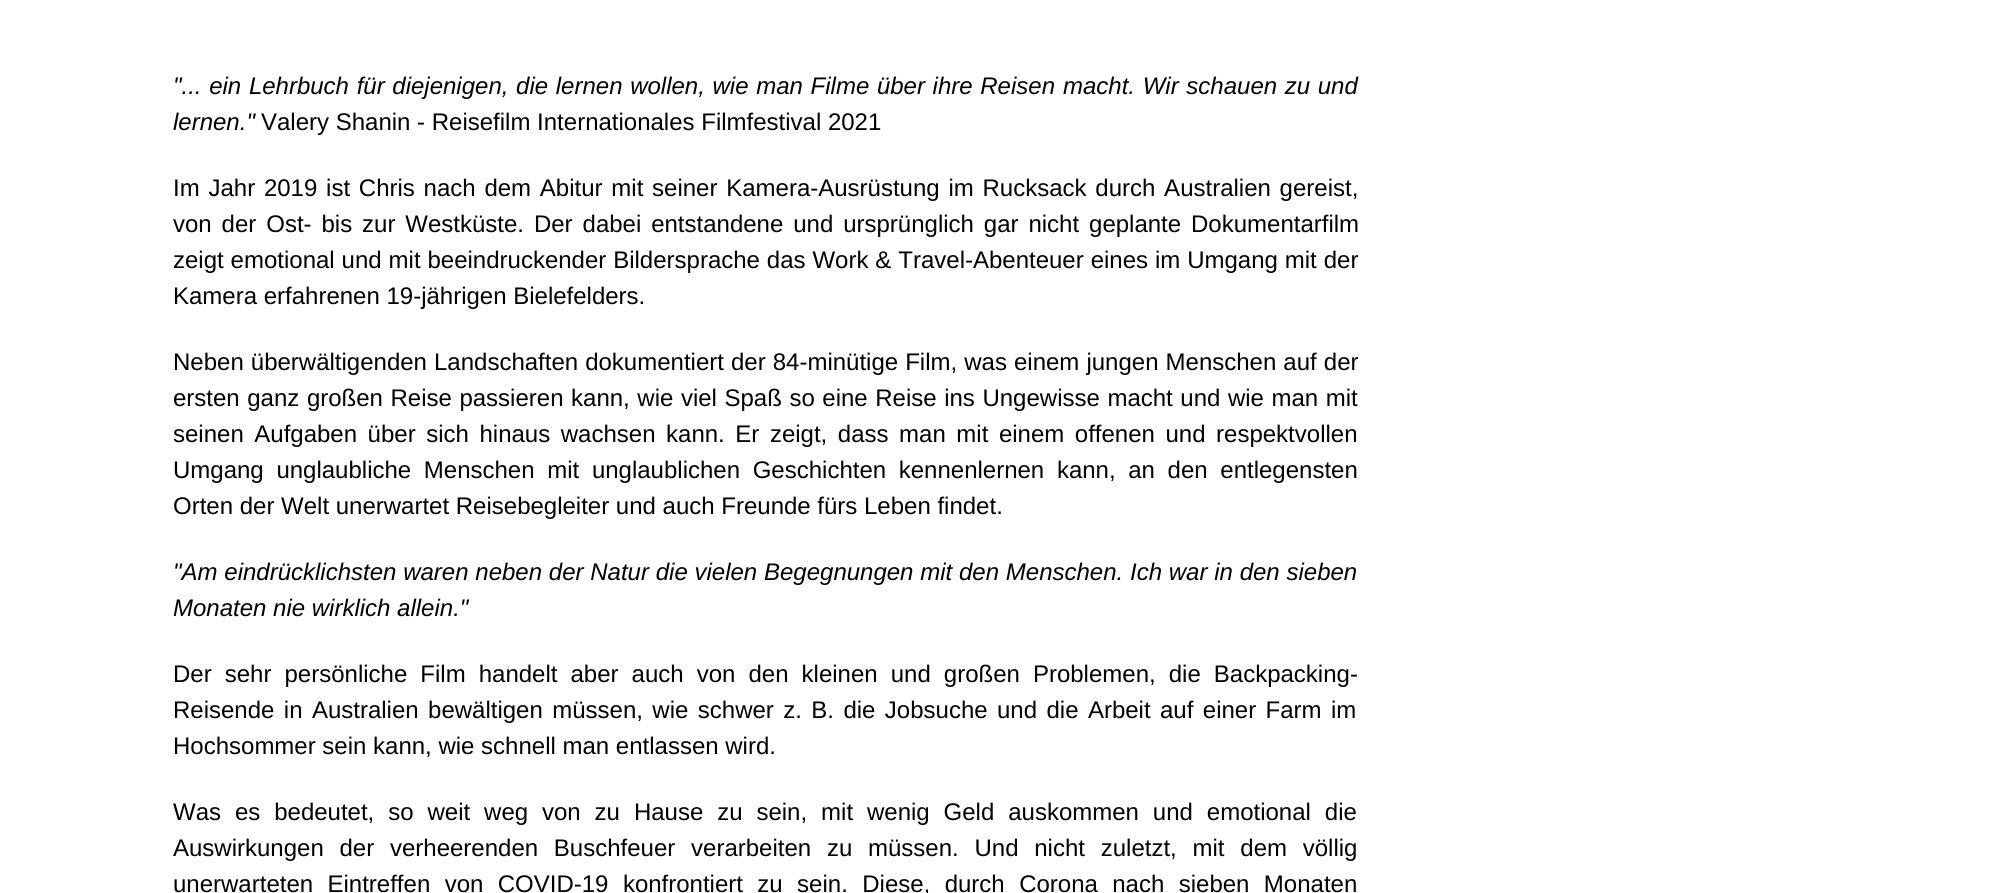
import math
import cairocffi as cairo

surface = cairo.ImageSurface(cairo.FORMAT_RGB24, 1994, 893)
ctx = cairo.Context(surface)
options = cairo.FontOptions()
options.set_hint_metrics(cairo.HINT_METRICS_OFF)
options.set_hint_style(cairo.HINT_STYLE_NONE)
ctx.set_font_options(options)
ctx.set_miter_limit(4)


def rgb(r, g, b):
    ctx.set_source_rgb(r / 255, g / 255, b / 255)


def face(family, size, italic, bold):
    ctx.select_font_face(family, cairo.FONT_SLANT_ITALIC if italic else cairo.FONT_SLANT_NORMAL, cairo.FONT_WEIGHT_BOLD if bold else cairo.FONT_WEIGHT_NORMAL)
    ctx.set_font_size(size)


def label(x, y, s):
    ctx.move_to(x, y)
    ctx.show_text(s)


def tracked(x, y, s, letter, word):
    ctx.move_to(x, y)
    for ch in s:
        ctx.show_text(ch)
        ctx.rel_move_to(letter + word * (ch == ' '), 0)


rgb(255, 255, 255)
ctx.paint()
face('Liberation Sans', 24, 1, 0)
rgb(0, 0, 0)
tracked(173, 94, '"... ein Lehrbuch für diejenigen, die lernen wollen, wie man Filme über ihre Reisen', 0, 1)
tracked(1063, 94, 'macht. Wir schauen zu und', 0, 1)
label(173, 130, 'lernen."')
face('Liberation Sans', 24, 0, 0)
label(261, 130, 'Valery Shanin - Reisefilm Internationales Filmfestival 2021')
tracked(173, 196, 'Im Jahr 2019 ist Chris nach dem Abitur mit seiner Kamera-Ausrüstung im Rucksack durch Australien gereist,', 0, 2.1)
tracked(173, 232, 'von der Ost- bis zur Westküste. Der dabei entstandene und ursprünglich gar nicht geplante Dokumentarfilm', 0, 3.25)
tracked(173, 268, 'zeigt emotional und mit beeindruckender Bildersprache das Work & Travel-Abenteuer eines im Umgang mit der', 0, 0.25)
label(173, 304, 'Kamera erfahrenen 19-jährigen Bielefelders.')
tracked(173, 370, 'Neben überwältigenden Landschaften dokumentiert der 84-minütige Film, was einem jungen Menschen auf der', 0, 0.4)
tracked(173, 406, 'ersten ganz großen Reise passieren kann, wie viel Spaß so eine Reise ins Ungewisse macht und wie man mit', 0, 0.9)
tracked(173, 442, 'seinen Aufgaben über sich hinaus wachsen kann. Er zeigt, dass man mit einem offenen und respektvollen', 0, 3.9)
tracked(173, 478, 'Umgang unglaubliche Menschen mit unglaublichen Geschichten kennenlernen kann, an den entlegensten', 0, 6)
label(173, 514, 'Orten der Welt unerwartet Reisebegleiter und auch Freunde fürs Leben findet.')
face('Liberation Sans', 24, 1, 0)
tracked(173, 580, '"Am eindrücklichsten waren neben der Natur die vielen Begegnungen mit den Menschen. Ich war in den sieben', 0, 0.1)
label(173, 616, 'Monaten nie wirklich allein."')
face('Liberation Sans', 24, 0, 0)
tracked(173, 682, 'Der sehr persönliche Film handelt aber auch von den kleinen und großen Problemen, die Backpacking-', 0, 6.4)
tracked(173, 718, 'Reisende in Australien bewältigen müssen, wie schwer z. B. die Jobsuche und die Arbeit auf einer Farm im', 0, 2.75)
label(173, 754, 'Hochsommer sein kann, wie schnell man entlassen wird.')
tracked(173, 820, 'Was es bedeutet, so weit weg von zu Hause zu sein, mit wenig Geld auskommen und emotional die', 0, 7.25)
tracked(173, 856, 'Auswirkungen der verheerenden Buschfeuer verarbeiten zu müssen. Und nicht zuletzt, mit dem völlig', 0, 9.1)
tracked(173, 892, 'unerwarteten Eintreffen von COVID-19 konfrontiert zu sein. Diese, durch Corona nach sieben Monaten', 0, 7.75)
surface.write_to_png('render.png')
